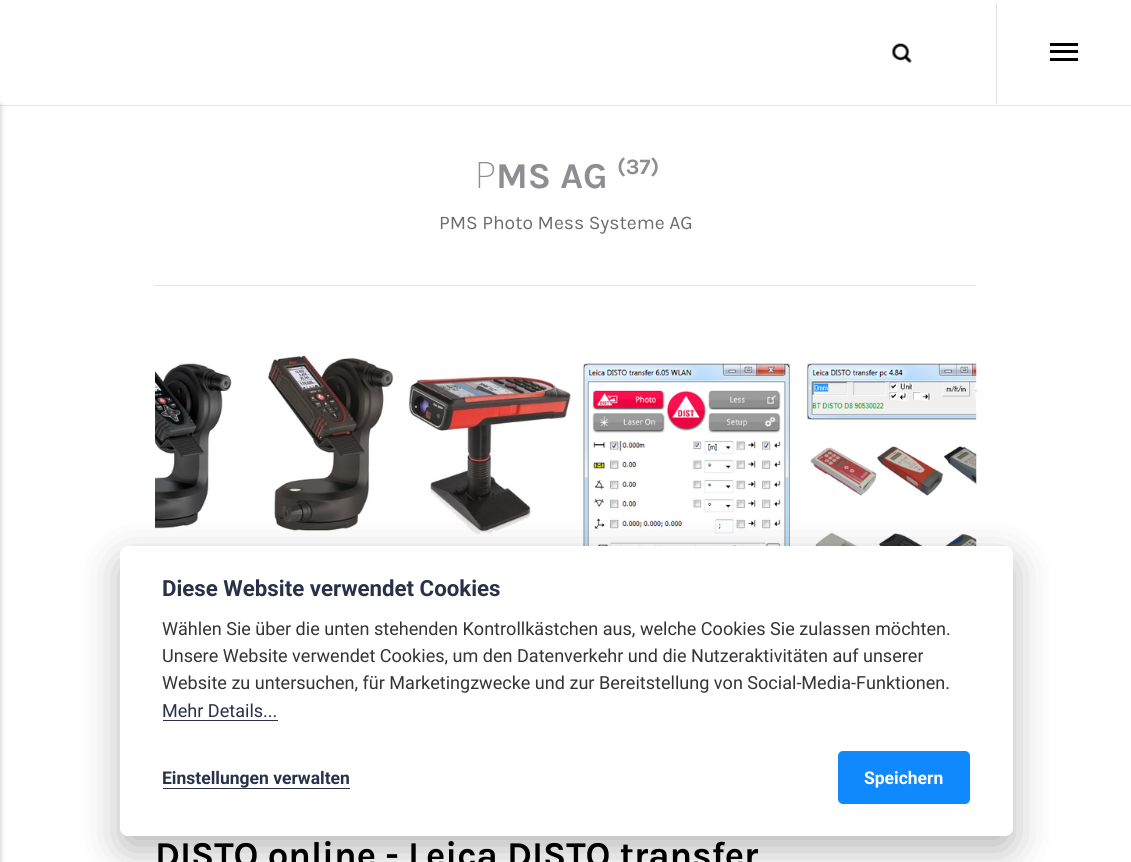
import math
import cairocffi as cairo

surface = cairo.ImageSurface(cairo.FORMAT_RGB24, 1131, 862)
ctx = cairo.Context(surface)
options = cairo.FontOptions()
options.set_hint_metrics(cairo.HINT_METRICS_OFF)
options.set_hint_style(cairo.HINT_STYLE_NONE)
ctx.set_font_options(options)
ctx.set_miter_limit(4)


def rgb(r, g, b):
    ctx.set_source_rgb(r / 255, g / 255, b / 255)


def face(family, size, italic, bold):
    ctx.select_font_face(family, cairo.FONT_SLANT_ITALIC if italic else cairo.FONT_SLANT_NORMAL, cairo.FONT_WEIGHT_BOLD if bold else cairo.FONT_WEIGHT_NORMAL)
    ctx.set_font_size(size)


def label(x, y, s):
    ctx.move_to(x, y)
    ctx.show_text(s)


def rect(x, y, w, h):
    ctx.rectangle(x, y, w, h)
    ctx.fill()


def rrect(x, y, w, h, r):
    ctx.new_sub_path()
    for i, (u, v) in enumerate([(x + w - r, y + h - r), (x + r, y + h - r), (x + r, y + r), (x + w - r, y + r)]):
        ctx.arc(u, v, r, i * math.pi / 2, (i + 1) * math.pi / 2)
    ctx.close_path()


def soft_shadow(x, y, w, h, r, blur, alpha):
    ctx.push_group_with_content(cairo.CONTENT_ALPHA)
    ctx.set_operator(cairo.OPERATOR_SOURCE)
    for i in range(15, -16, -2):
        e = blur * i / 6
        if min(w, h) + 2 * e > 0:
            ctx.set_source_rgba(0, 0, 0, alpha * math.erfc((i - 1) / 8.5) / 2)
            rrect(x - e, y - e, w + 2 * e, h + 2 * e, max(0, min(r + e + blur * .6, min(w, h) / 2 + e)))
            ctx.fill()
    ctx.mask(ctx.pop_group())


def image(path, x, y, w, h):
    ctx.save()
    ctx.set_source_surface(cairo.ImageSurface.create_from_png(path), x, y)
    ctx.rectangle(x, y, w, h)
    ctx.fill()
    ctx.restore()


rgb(255, 255, 255)
ctx.paint()
rgb(227, 227, 227)
rect(0, 105, 1131, 1)
image('image0.png', 892, 43, 20, 20)
rect(996, 3, 1, 101)
rgb(0, 0, 0)
rect(1050, 50, 28, 3)
rect(1050, 43, 28, 3)
rect(1050, 58, 28, 3)
rgb(0, 0, 0)
soft_shadow(-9, 105, 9, 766, 0, 3, 0.25)
rgb(227, 227, 227)
rect(155, 285, 821, 1)
face('Noto Sans ExtraLight', 36.4, 0, 0)
rgb(141, 141, 148)
label(475, 188, 'P')
face('Karla', 36.4, 0, 1)
label(496, 188, 'MS AG')
face('Karla', 22, 0, 1)
label(617, 174, '(37)')
face('Karla', 19.3, 0, 0)
rgb(108, 108, 111)
label(439, 229, 'PMS Photo Mess Systeme AG')
image('image1.png', 155, 351, 822, 195)
face('Karla', 36.4, 0, 1)
rgb(0, 0, 0)
label(155, 867, 'DISTO online - Leica DISTO transfer')
rgb(2, 2, 3)
soft_shadow(120, 560, 893, 290, 8, 20, 0.28)
rgb(255, 255, 255)
rrect(120, 546, 893, 290, 8)
ctx.fill()
face('Roboto', 22.25, 0, 1)
rgb(40, 49, 73)
label(162, 596, 'Diese Website verwendet Cookies')
face('Roboto', 18.05, 0, 0)
rgb(52, 52, 53)
label(162, 635, 'Wählen Sie über die unten stehenden Kontrollkästchen aus, welche Cookies Sie zulassen möchten.')
label(162, 662, 'Unsere Website verwendet Cookies, um den Datenverkehr und die Nutzeraktivitäten auf unserer')
label(162, 689, 'Website zu untersuchen, für Marketingzwecke und zur Bereitstellung von Social-Media-Funktionen.')
rgb(40, 49, 73)
label(162, 717, 'Mehr Details...')
rect(163, 720, 115, 1)
face('Roboto', 17.5, 0, 1)
label(162, 784, 'Einstellungen verwalten')
rect(163, 788, 187, 1)
rgb(16, 137, 255)
rrect(838, 751, 132, 53, 5)
ctx.fill()
rgb(255, 255, 255)
label(864, 784, 'Speichern')
surface.write_to_png('render.png')
